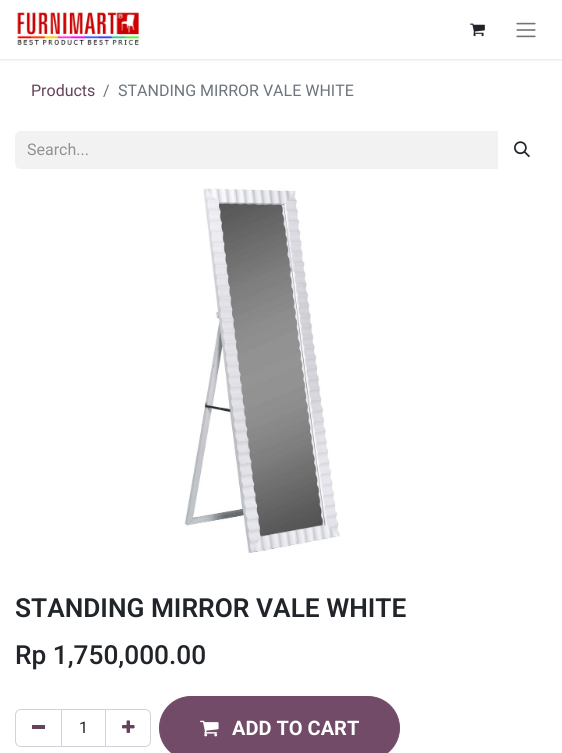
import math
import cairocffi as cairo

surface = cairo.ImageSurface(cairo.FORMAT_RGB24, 562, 753)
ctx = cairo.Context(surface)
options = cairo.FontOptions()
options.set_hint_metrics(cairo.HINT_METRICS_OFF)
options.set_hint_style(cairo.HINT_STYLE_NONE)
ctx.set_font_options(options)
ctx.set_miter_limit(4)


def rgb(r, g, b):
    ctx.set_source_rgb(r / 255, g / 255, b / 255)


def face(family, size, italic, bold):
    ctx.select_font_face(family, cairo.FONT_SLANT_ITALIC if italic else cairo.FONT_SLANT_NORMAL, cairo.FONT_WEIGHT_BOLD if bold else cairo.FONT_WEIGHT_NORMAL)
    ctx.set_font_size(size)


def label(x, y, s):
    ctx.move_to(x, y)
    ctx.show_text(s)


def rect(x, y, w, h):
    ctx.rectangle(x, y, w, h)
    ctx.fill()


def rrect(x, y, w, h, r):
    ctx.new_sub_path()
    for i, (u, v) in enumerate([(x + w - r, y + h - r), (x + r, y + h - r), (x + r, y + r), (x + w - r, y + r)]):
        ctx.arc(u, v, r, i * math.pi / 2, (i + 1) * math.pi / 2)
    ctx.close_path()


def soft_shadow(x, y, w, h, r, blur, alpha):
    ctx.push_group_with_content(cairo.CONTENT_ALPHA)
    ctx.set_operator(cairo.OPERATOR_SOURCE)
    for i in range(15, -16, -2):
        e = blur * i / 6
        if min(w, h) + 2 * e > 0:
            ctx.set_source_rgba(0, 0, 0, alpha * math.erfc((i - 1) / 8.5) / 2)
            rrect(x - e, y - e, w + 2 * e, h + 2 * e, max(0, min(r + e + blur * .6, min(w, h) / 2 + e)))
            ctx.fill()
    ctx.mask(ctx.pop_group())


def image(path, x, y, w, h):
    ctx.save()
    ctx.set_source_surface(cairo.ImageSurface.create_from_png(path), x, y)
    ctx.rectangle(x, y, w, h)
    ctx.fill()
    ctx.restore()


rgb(255, 255, 255)
ctx.paint()
ctx.save()
ctx.rectangle(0, 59, 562, 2)
ctx.clip()
rgb(0, 0, 0)
soft_shadow(0, 1, 562, 59, 0, 1.5, 0.1)
ctx.restore()
image('image0.png', 17, 11, 123, 35)
image('image1.png', 470, 23, 15, 14)
image('image2.png', 516, 22, 20, 16)
face('Roboto', 16, 0, 0)
rgb(101, 67, 92)
label(31, 96, 'Products')
rgb(108, 117, 125)
label(103, 96, '/')
label(118, 96, 'STANDING MIRROR VALE WHITE')
rgb(243, 242, 242)
ctx.new_path()
ctx.move_to(21, 131)
ctx.line_to(498, 131)
ctx.line_to(498, 169)
ctx.line_to(21, 169)
ctx.curve_to(17.5, 169, 15, 166.5, 15, 163)
ctx.line_to(15, 137)
ctx.curve_to(15, 133.5, 17.5, 131, 21, 131)
ctx.close_path()
ctx.fill()
rgb(144, 146, 148)
label(27, 155, 'Search...')
image('image3.png', 514, 141, 16, 17)
image('image4.png', 184, 188, 156, 365)
face('Roboto SemiBold', 26.25, 0, 0)
rgb(33, 37, 41)
label(15, 617, 'STANDING MIRROR VALE WHITE')
face('Roboto Medium', 26.25, 0, 0)
label(15, 664, 'Rp 1,750,000.00')
ctx.rectangle(61.5, 709.5, 44, 37)
rgb(206, 212, 218)
ctx.set_line_width(1)
ctx.stroke()
ctx.new_path()
ctx.move_to(21, 709.5)
ctx.line_to(61.5, 709.5)
ctx.line_to(61.5, 746.5)
ctx.line_to(21, 746.5)
ctx.curve_to(18, 746.5, 15.5, 744, 15.5, 741)
ctx.line_to(15.5, 715)
ctx.curve_to(15.5, 712, 18, 709.5, 21, 709.5)
ctx.close_path()
ctx.stroke()
rgb(101, 67, 92)
rect(32, 725, 13, 4)
face('Roboto', 16, 0, 0)
rgb(33, 37, 41)
label(79, 733, '1')
ctx.new_path()
ctx.move_to(105.5, 709.5)
ctx.line_to(145, 709.5)
ctx.curve_to(148, 709.5, 150.5, 712, 150.5, 715)
ctx.line_to(150.5, 741)
ctx.curve_to(150.5, 744, 148, 746.5, 145, 746.5)
ctx.line_to(105.5, 746.5)
ctx.close_path()
rgb(206, 212, 218)
ctx.stroke()
image('image5.png', 122, 720, 13, 13)
rgb(113, 75, 103)
rrect(159.5, 696.5, 240, 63, 31.5)
ctx.fill_preserve()
ctx.stroke()
image('image6.png', 200, 720, 19, 17)
face('Roboto', 20, 0, 1)
rgb(255, 255, 255)
label(232, 735, 'ADD TO CART')
surface.write_to_png('render.png')
